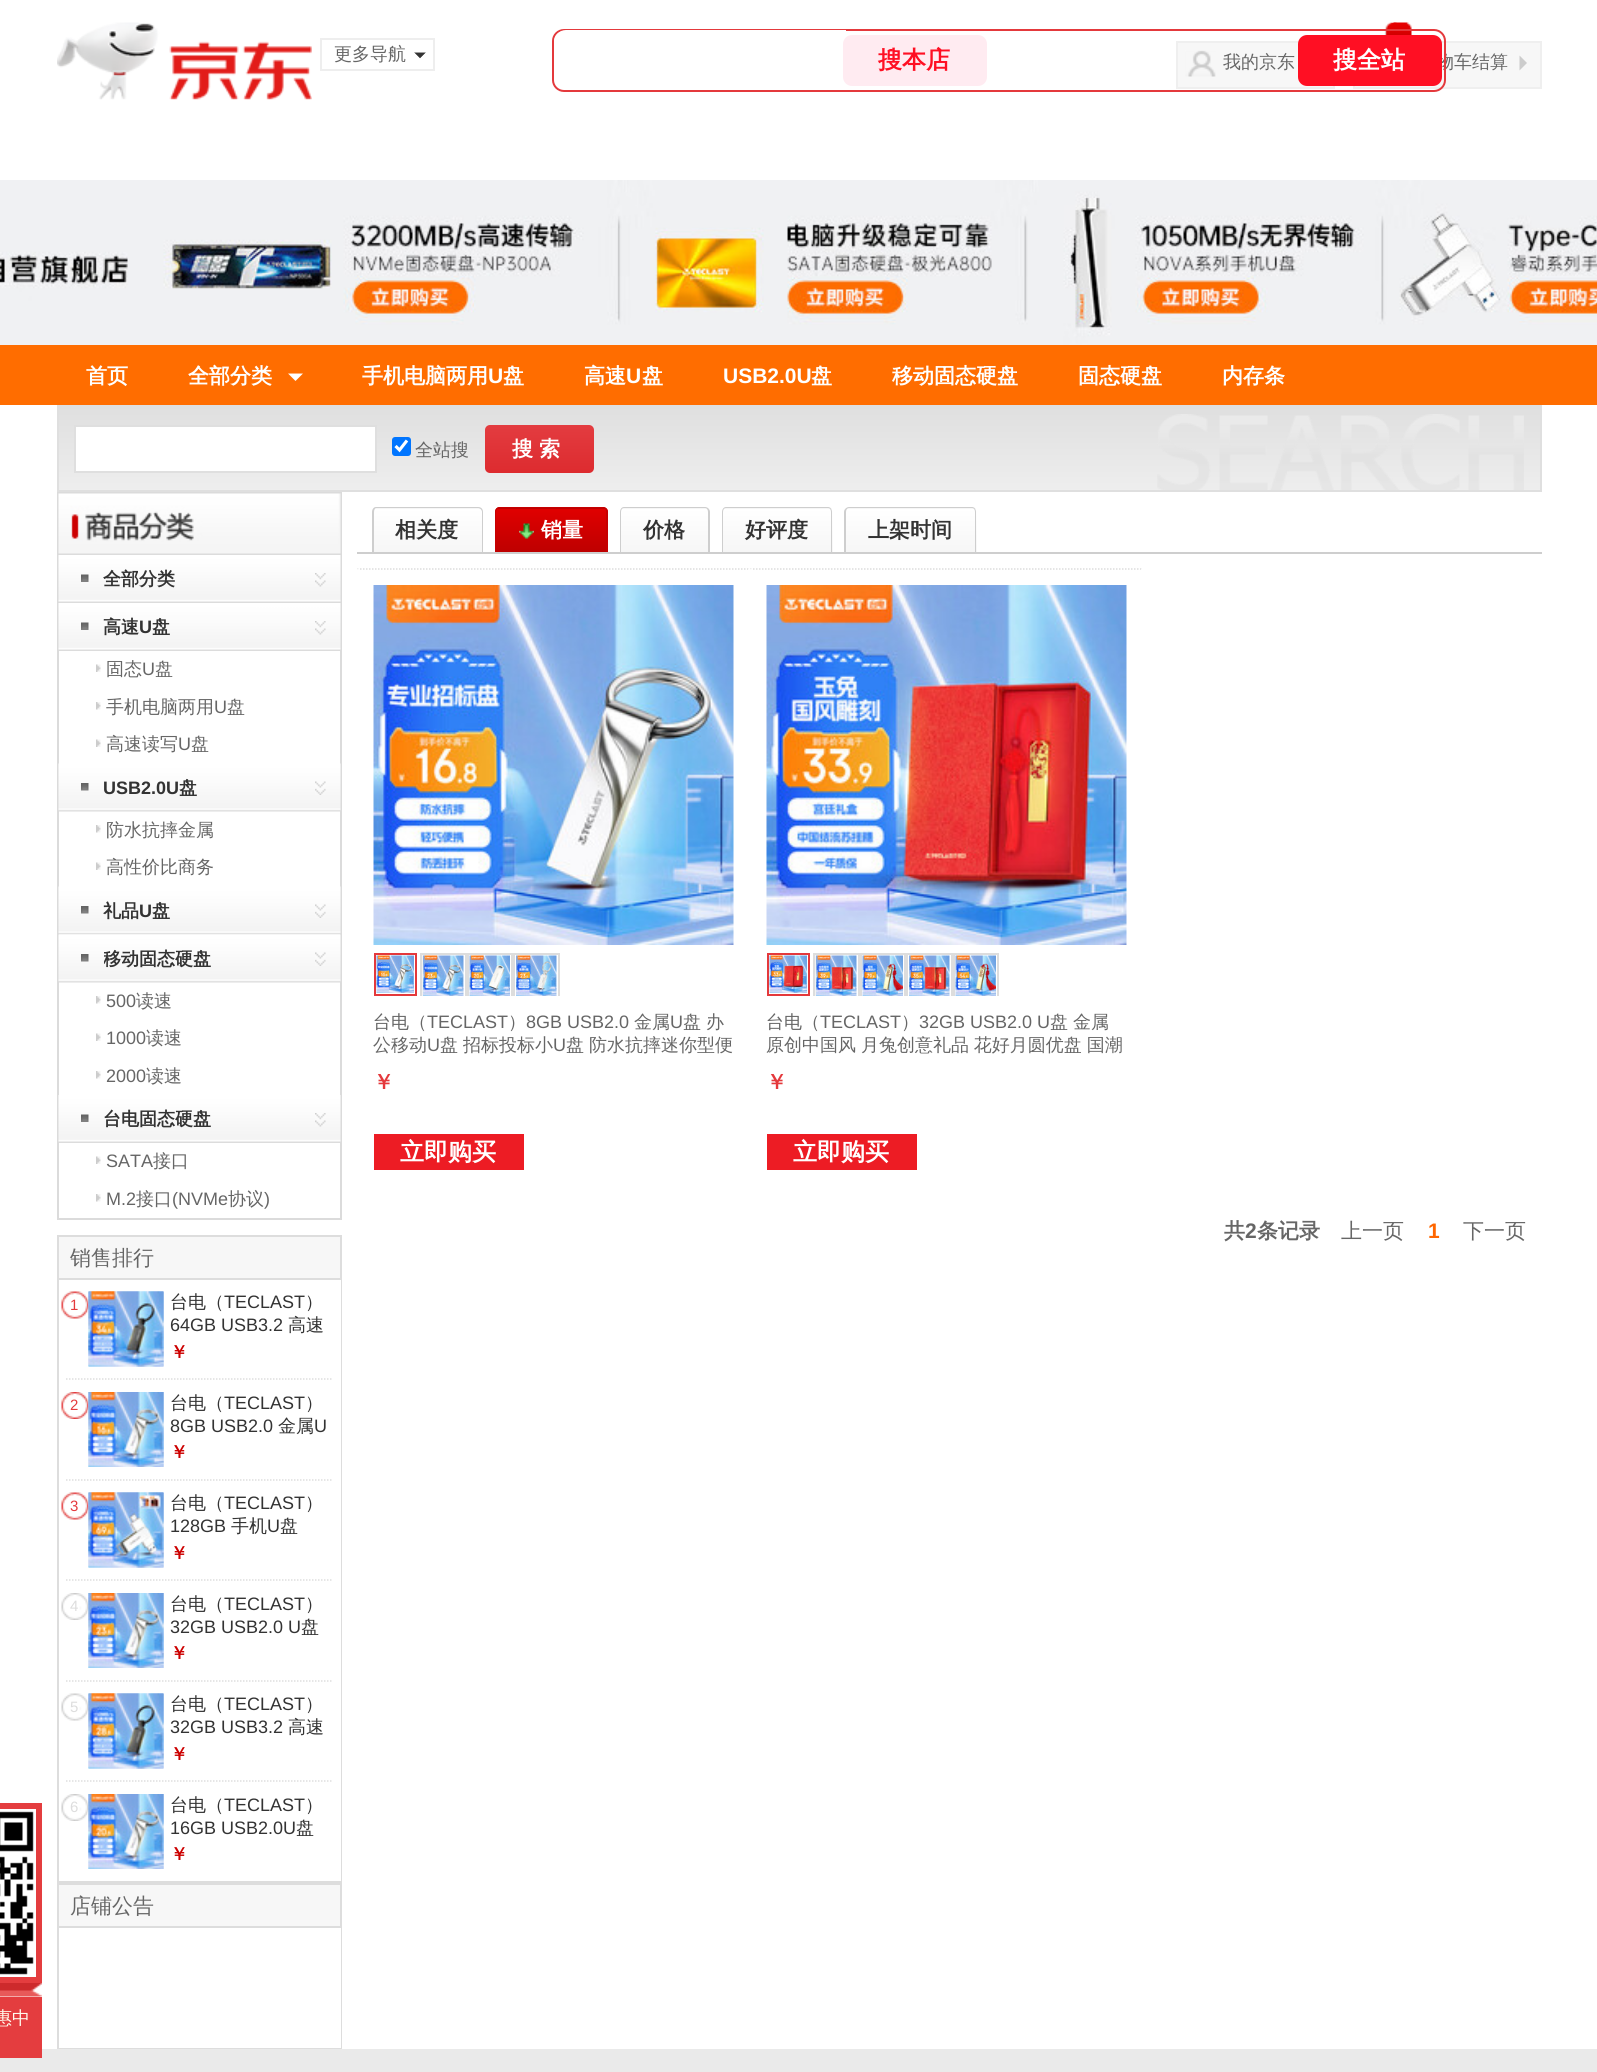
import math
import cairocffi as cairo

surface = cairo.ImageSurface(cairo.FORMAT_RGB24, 1597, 2072)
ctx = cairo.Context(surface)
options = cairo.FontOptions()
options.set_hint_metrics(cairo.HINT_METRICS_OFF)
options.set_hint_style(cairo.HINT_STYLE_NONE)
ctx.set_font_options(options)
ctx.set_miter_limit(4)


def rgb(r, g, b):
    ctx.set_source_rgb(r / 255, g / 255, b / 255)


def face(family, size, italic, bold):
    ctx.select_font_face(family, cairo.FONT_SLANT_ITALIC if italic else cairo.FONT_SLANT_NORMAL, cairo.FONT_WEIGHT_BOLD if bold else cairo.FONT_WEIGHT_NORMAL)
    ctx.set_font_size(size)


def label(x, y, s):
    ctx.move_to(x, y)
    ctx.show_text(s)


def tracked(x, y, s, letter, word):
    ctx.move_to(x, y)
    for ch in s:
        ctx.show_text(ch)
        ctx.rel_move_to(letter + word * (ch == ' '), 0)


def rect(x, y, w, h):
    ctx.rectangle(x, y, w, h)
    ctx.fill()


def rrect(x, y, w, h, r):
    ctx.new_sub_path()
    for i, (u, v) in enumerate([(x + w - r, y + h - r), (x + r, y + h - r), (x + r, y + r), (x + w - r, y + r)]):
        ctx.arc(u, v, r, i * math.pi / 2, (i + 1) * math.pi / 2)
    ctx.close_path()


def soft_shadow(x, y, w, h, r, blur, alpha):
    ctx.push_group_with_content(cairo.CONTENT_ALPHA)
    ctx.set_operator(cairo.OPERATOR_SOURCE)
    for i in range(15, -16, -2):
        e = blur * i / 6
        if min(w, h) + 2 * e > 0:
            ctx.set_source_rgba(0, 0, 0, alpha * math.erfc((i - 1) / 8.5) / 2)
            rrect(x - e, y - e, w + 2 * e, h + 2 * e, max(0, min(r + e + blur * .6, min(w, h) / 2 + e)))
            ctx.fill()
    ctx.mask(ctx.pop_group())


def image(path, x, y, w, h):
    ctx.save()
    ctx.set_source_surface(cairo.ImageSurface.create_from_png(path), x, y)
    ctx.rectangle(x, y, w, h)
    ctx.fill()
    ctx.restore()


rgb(255, 255, 255)
ctx.paint()
image('image0.png', 57, 22, 255, 78)
ctx.rectangle(321, 39, 113, 31)
rgb(238, 238, 238)
ctx.stroke()
face('WenQuanYi Zen Hei Medium', 18, 0, 0)
rgb(102, 102, 102)
label(334, 60, '更多导航')
rgb(51, 51, 51)
ctx.new_path()
ctx.move_to(414, 52.5)
ctx.line_to(426, 52.5)
ctx.line_to(420, 58.5)
ctx.close_path()
ctx.fill()
rgb(255, 255, 255)
ctx.new_path()
ctx.move_to(426, 52.5)
ctx.line_to(426, 64.5)
ctx.line_to(420, 58.5)
ctx.close_path()
ctx.move_to(414, 64.5)
ctx.line_to(414, 52.5)
ctx.line_to(420, 58.5)
ctx.close_path()
ctx.fill()
rgb(247, 247, 247)
rect(1178, 43, 155, 44)
image('image1.png', 1185, 50, 31, 27)
ctx.rectangle(1177, 42, 157, 46)
rgb(239, 239, 239)
ctx.stroke()
rgb(247, 247, 247)
ctx.rectangle(1354, 42, 187, 46)
ctx.fill_preserve()
rgb(239, 239, 239)
ctx.stroke()
image('image2.png', 1384, 22, 28, 13)
image('image3.png', 1393, 22, 19, 13)
rgb(102, 102, 102)
label(1436, 68, '物车结算')
rrect(553, 30, 892, 61, 11)
rgb(228, 57, 60)
ctx.stroke()
rgb(255, 255, 255)
ctx.new_path()
ctx.move_to(566, 30)
ctx.line_to(846, 30)
ctx.line_to(846, 75)
ctx.line_to(554, 75)
ctx.line_to(554, 42)
ctx.curve_to(554, 35.5, 559.5, 30, 566, 30)
ctx.close_path()
ctx.fill()
rgb(255, 235, 241)
rrect(843, 35, 144, 51, 9)
ctx.fill()
face('WenQuanYi Zen Hei', 24, 0, 1)
rgb(255, 15, 35)
label(878, 68, '搜本店')
rrect(1298, 35, 144, 51, 9)
ctx.fill()
rgb(255, 255, 255)
label(1333, 68, '搜全站')
face('WenQuanYi Zen Hei Medium', 18, 0, 0)
rgb(102, 102, 102)
label(1223, 68, '我的京东')
rgb(204, 204, 204)
ctx.new_path()
ctx.move_to(1519.5, 70.5)
ctx.line_to(1519.5, 55.5)
ctx.line_to(1527, 63)
ctx.close_path()
ctx.fill()
image('image4.png', 0, 180, 1597, 165)
rgb(255, 109, 0)
rect(0, 345, 1597, 60)
face('WenQuanYi Zen Hei', 21, 0, 1)
rgb(255, 255, 255)
label(86, 383, '首页')
label(188, 383, '全部分类')
ctx.new_path()
ctx.move_to(288, 373.5)
ctx.line_to(303, 373.5)
ctx.line_to(295.5, 381)
ctx.close_path()
ctx.fill()
label(362, 383, '手机电脑两用')
face('Liberation Sans', 21, 0, 1)
label(488, 383, 'U')
face('WenQuanYi Zen Hei', 21, 0, 1)
label(503, 383, '盘')
label(584, 383, '高速')
face('Liberation Sans', 21, 0, 1)
label(626, 383, 'U')
face('WenQuanYi Zen Hei', 21, 0, 1)
label(642, 383, '盘')
face('Liberation Sans', 21, 0, 1)
label(723, 383, 'USB2.0U')
face('WenQuanYi Zen Hei', 21, 0, 1)
label(811, 383, '盘')
label(892, 383, '移动固态硬盘')
label(1078, 383, '固态硬盘')
label(1222, 383, '内存条')
gradient = cairo.LinearGradient(59, 407, 59, 491)
gradient.add_color_stop_rgba(0, 0.875, 0.875, 0.875, 1)
gradient.add_color_stop_rgba(1, 0.933, 0.933, 0.933, 1)
ctx.set_source(gradient)
rect(59, 407, 1481, 83)
ctx.rectangle(58, 406, 1483, 85)
rgb(223, 223, 223)
ctx.stroke()
image('image5.png', 1157, 414, 367, 76)
rgb(255, 255, 255)
ctx.rectangle(75, 426, 301, 46)
ctx.fill_preserve()
rgb(223, 223, 223)
ctx.stroke()
rgb(0, 117, 255)
rrect(392, 437, 19, 19, 3)
ctx.fill()
ctx.new_path()
ctx.move_to(395.5, 446)
ctx.line_to(399.5, 450)
ctx.line_to(407, 440.5)
rgb(255, 255, 255)
ctx.set_line_width(3.1)
ctx.stroke()
face('WenQuanYi Zen Hei Medium', 18, 0, 0)
rgb(102, 102, 102)
label(415, 456, '全站搜')
gradient = cairo.LinearGradient(485, 425, 485, 473)
gradient.add_color_stop_rgba(0, 0.89, 0.235, 0.251, 1)
gradient.add_color_stop_rgba(1, 0.867, 0.169, 0.184, 1)
ctx.set_source(gradient)
rrect(485, 425, 109, 48, 5)
ctx.fill()
face('WenQuanYi Zen Hei', 21, 0, 1)
rgb(255, 255, 255)
tracked(512, 456, '搜索', 6, 0)
ctx.rectangle(58, 493, 283, 726)
rgb(219, 219, 219)
ctx.set_line_width(2)
ctx.stroke()
image('image6.png', 58, 493, 283, 62)
image('image7.png', 58, 555, 283, 48)
image('image8.png', 81, 574, 8, 8)
face('WenQuanYi Zen Hei', 18, 0, 1)
rgb(51, 51, 51)
label(103, 585, '全部分类')
image('image9.png', 315, 573, 11, 14)
image('image10.png', 58, 603, 283, 48)
image('image8.png', 81, 622, 8, 8)
label(103, 633, '高速')
face('Liberation Sans', 18, 0, 1)
label(139, 633, 'U')
face('WenQuanYi Zen Hei', 18, 0, 1)
label(152, 633, '盘')
image('image9.png', 315, 621, 11, 14)
image('image11.png', 96, 664, 5, 8)
face('WenQuanYi Zen Hei Medium', 18, 0, 0)
rgb(102, 102, 102)
label(106, 675, '固态')
face('Liberation Sans', 18, 0, 0)
label(142, 675, 'U')
face('WenQuanYi Zen Hei Medium', 18, 0, 0)
label(155, 675, '盘')
image('image12.png', 96, 702, 5, 8)
label(106, 713, '手机电脑两用')
face('Liberation Sans', 18, 0, 0)
label(214, 713, 'U')
face('WenQuanYi Zen Hei Medium', 18, 0, 0)
label(227, 713, '盘')
image('image11.png', 96, 739, 5, 8)
label(106, 750, '高速读写')
face('Liberation Sans', 18, 0, 0)
label(178, 750, 'U')
face('WenQuanYi Zen Hei Medium', 18, 0, 0)
label(191, 750, '盘')
image('image13.png', 58, 763, 283, 49)
image('image14.png', 81, 783, 8, 8)
ctx.save()
ctx.rectangle(104, 764, 210, 45)
ctx.clip()
face('Liberation Sans', 18, 0, 1)
rgb(51, 51, 51)
label(103, 794, 'USB2.0U')
ctx.restore()
face('WenQuanYi Zen Hei', 18, 0, 1)
rgb(51, 51, 51)
label(179, 794, '盘')
image('image15.png', 315, 781, 11, 14)
image('image12.png', 96, 825, 5, 8)
face('WenQuanYi Zen Hei Medium', 18, 0, 0)
rgb(102, 102, 102)
label(106, 836, '防水抗摔金属')
image('image11.png', 96, 862, 5, 8)
label(106, 873, '高性价比商务')
image('image13.png', 58, 886, 283, 49)
image('image14.png', 81, 906, 8, 8)
face('WenQuanYi Zen Hei', 18, 0, 1)
rgb(51, 51, 51)
label(103, 917, '礼品')
face('Liberation Sans', 18, 0, 1)
label(139, 917, 'U')
face('WenQuanYi Zen Hei', 18, 0, 1)
label(152, 917, '盘')
image('image15.png', 315, 904, 11, 14)
image('image16.png', 58, 934, 283, 49)
image('image14.png', 81, 954, 8, 8)
ctx.save()
ctx.rectangle(104, 935, 210, 45)
ctx.clip()
label(103, 965, '移动固态硬盘')
ctx.restore()
image('image15.png', 315, 952, 11, 14)
image('image12.png', 96, 996, 5, 8)
face('Liberation Sans', 18, 0, 0)
rgb(102, 102, 102)
label(106, 1007, '500')
face('WenQuanYi Zen Hei Medium', 18, 0, 0)
label(136, 1007, '读速')
image('image11.png', 96, 1033, 5, 8)
face('Liberation Sans', 18, 0, 0)
label(106, 1044, '1000')
face('WenQuanYi Zen Hei Medium', 18, 0, 0)
label(146, 1044, '读速')
image('image12.png', 96, 1071, 5, 8)
face('Liberation Sans', 18, 0, 0)
label(106, 1082, '2000')
face('WenQuanYi Zen Hei Medium', 18, 0, 0)
label(146, 1082, '读速')
image('image7.png', 58, 1095, 283, 48)
image('image8.png', 81, 1114, 8, 8)
face('WenQuanYi Zen Hei', 18, 0, 1)
rgb(51, 51, 51)
label(103, 1125, '台电固态硬盘')
image('image9.png', 315, 1113, 11, 14)
image('image11.png', 96, 1156, 5, 8)
face('Liberation Sans', 18, 0, 0)
rgb(102, 102, 102)
label(106, 1167, 'SATA')
face('WenQuanYi Zen Hei Medium', 18, 0, 0)
label(153, 1167, '接口')
image('image12.png', 96, 1194, 5, 8)
face('Liberation Sans', 18, 0, 0)
label(106, 1205, 'M.2')
face('WenQuanYi Zen Hei Medium', 18, 0, 0)
label(136, 1205, '接口')
face('Liberation Sans', 18, 0, 0)
label(172, 1205, '(NVMe')
face('WenQuanYi Zen Hei Medium', 18, 0, 0)
label(228, 1205, '协议')
face('Liberation Sans', 18, 0, 0)
label(264, 1205, ')')
rgb(221, 221, 221)
rect(341, 1278, 1, 605)
rect(57, 1881, 285, 2)
rect(57, 1278, 2, 605)
rgb(247, 247, 247)
ctx.rectangle(58, 1236, 283, 43)
ctx.fill_preserve()
rgb(221, 221, 221)
ctx.stroke()
face('WenQuanYi Zen Hei Medium', 21, 0, 0)
rgb(102, 102, 102)
label(70, 1265, '销售排行')
image('image17.png', 61, 1291, 28, 28)
face('Liberation Sans', 15, 0, 0)
rgb(228, 57, 60)
label(70, 1310, '1')
image('image18.png', 88, 1291, 76, 76)
image('image19.png', 88, 1291, 76, 76)
face('WenQuanYi Zen Hei Medium', 18, 0, 0)
rgb(51, 51, 51)
label(170, 1308, '台电（')
face('Liberation Sans', 18, 0, 0)
label(224, 1308, 'TECLAST')
face('WenQuanYi Zen Hei Medium', 18, 0, 0)
label(305, 1308, '）')
face('Liberation Sans', 18, 0, 0)
label(170, 1331, '64GB USB3.2')
face('WenQuanYi Zen Hei Medium', 18, 0, 0)
label(288, 1331, '高速')
face('WenQuanYi Zen Hei', 18, 0, 1)
rgb(204, 0, 0)
label(170, 1358, '￥')
ctx.new_path()
ctx.move_to(66, 1379)
ctx.line_to(333, 1379)
rgb(222, 222, 222)
ctx.set_line_width(1.5)
ctx.set_dash([1.5, 1.5])
ctx.stroke()
image('image20.png', 61, 1392, 28, 27)
face('Liberation Sans', 15, 0, 0)
rgb(228, 57, 60)
label(70, 1410, '2')
image('image21.png', 88, 1392, 76, 75)
image('image22.png', 88, 1392, 76, 75)
face('WenQuanYi Zen Hei Medium', 18, 0, 0)
rgb(51, 51, 51)
label(170, 1409, '台电（')
face('Liberation Sans', 18, 0, 0)
label(224, 1409, 'TECLAST')
face('WenQuanYi Zen Hei Medium', 18, 0, 0)
label(305, 1409, '）')
face('Liberation Sans', 18, 0, 0)
label(170, 1432, '8GB USB2.0')
face('WenQuanYi Zen Hei Medium', 18, 0, 0)
label(278, 1432, '金属')
face('Liberation Sans', 18, 0, 0)
label(314, 1432, 'U')
face('WenQuanYi Zen Hei', 18, 0, 1)
rgb(204, 0, 0)
label(170, 1458, '￥')
ctx.new_path()
ctx.move_to(66, 1480)
ctx.line_to(333, 1480)
rgb(222, 222, 222)
ctx.stroke()
image('image17.png', 61, 1492, 28, 28)
face('Liberation Sans', 15, 0, 0)
rgb(228, 57, 60)
label(70, 1511, '3')
image('image23.png', 88, 1492, 76, 76)
image('image24.png', 88, 1492, 76, 76)
face('WenQuanYi Zen Hei Medium', 18, 0, 0)
rgb(51, 51, 51)
label(170, 1509, '台电（')
face('Liberation Sans', 18, 0, 0)
label(224, 1509, 'TECLAST')
face('WenQuanYi Zen Hei Medium', 18, 0, 0)
label(305, 1509, '）')
face('Liberation Sans', 18, 0, 0)
label(170, 1532, '128GB')
face('WenQuanYi Zen Hei Medium', 18, 0, 0)
label(231, 1532, '手机')
face('Liberation Sans', 18, 0, 0)
label(267, 1532, 'U')
face('WenQuanYi Zen Hei Medium', 18, 0, 0)
label(280, 1532, '盘')
face('WenQuanYi Zen Hei', 18, 0, 1)
rgb(204, 0, 0)
label(170, 1559, '￥')
ctx.new_path()
ctx.move_to(66, 1580)
ctx.line_to(333, 1580)
rgb(222, 222, 222)
ctx.stroke()
image('image25.png', 61, 1593, 28, 27)
face('Liberation Sans', 15, 0, 0)
rgb(221, 221, 221)
label(70, 1611, '4')
image('image26.png', 88, 1593, 76, 75)
image('image27.png', 88, 1593, 76, 75)
face('WenQuanYi Zen Hei Medium', 18, 0, 0)
rgb(51, 51, 51)
label(170, 1610, '台电（')
face('Liberation Sans', 18, 0, 0)
label(224, 1610, 'TECLAST')
face('WenQuanYi Zen Hei Medium', 18, 0, 0)
label(305, 1610, '）')
face('Liberation Sans', 18, 0, 0)
label(170, 1633, '32GB USB2.0 U')
face('WenQuanYi Zen Hei Medium', 18, 0, 0)
label(301, 1633, '盘')
face('WenQuanYi Zen Hei', 18, 0, 1)
rgb(204, 0, 0)
label(170, 1659, '￥')
ctx.new_path()
ctx.move_to(66, 1681)
ctx.line_to(333, 1681)
rgb(222, 222, 222)
ctx.stroke()
image('image28.png', 61, 1693, 28, 28)
face('Liberation Sans', 15, 0, 0)
rgb(221, 221, 221)
label(70, 1712, '5')
image('image29.png', 88, 1693, 76, 76)
image('image30.png', 88, 1693, 76, 76)
face('WenQuanYi Zen Hei Medium', 18, 0, 0)
rgb(51, 51, 51)
label(170, 1710, '台电（')
face('Liberation Sans', 18, 0, 0)
label(224, 1710, 'TECLAST')
face('WenQuanYi Zen Hei Medium', 18, 0, 0)
label(305, 1710, '）')
face('Liberation Sans', 18, 0, 0)
label(170, 1733, '32GB USB3.2')
face('WenQuanYi Zen Hei Medium', 18, 0, 0)
label(288, 1733, '高速')
face('WenQuanYi Zen Hei', 18, 0, 1)
rgb(204, 0, 0)
label(170, 1760, '￥')
ctx.new_path()
ctx.move_to(66, 1781)
ctx.line_to(333, 1781)
rgb(222, 222, 222)
ctx.stroke()
image('image25.png', 61, 1794, 28, 27)
face('Liberation Sans', 15, 0, 0)
rgb(221, 221, 221)
label(70, 1812, '6')
image('image31.png', 88, 1794, 76, 75)
image('image32.png', 88, 1794, 76, 75)
face('WenQuanYi Zen Hei Medium', 18, 0, 0)
rgb(51, 51, 51)
label(170, 1811, '台电（')
face('Liberation Sans', 18, 0, 0)
label(224, 1811, 'TECLAST')
face('WenQuanYi Zen Hei Medium', 18, 0, 0)
label(305, 1811, '）')
face('Liberation Sans', 18, 0, 0)
label(170, 1834, '16GB USB2.0U')
face('WenQuanYi Zen Hei Medium', 18, 0, 0)
label(296, 1834, '盘')
face('WenQuanYi Zen Hei', 18, 0, 1)
rgb(204, 0, 0)
label(170, 1860, '￥')
rgb(247, 247, 247)
ctx.rectangle(58, 1884, 283, 43)
ctx.fill_preserve()
rgb(221, 221, 221)
ctx.set_line_width(2)
ctx.set_dash([])
ctx.stroke()
face('WenQuanYi Zen Hei Medium', 21, 0, 0)
rgb(102, 102, 102)
label(70, 1913, '店铺公告')
rgb(221, 221, 221)
rect(341, 1928, 1, 121)
rect(57, 2048, 285, 1)
rect(57, 1928, 2, 121)
rgb(206, 206, 206)
rect(357, 552, 1185, 2)
ctx.save()
ctx.new_path()
ctx.move_to(377, 507)
ctx.line_to(478, 507)
ctx.curve_to(481, 507, 483, 509, 483, 512)
ctx.line_to(483, 552)
ctx.line_to(372, 552)
ctx.line_to(372, 512)
ctx.curve_to(372, 509, 374, 507, 377, 507)
ctx.close_path()
ctx.clip()
gradient = cairo.LinearGradient(374, 465, 374, 509)
gradient.add_color_stop_rgba(0, 1, 1, 1, 1)
gradient.add_color_stop_rgba(1, 0.965, 0.965, 0.965, 1)
ctx.set_source(gradient)
rect(372, 507, 111, 2)
gradient = cairo.LinearGradient(374, 509, 374, 552)
gradient.add_color_stop_rgba(0, 1, 1, 1, 1)
gradient.add_color_stop_rgba(1, 0.965, 0.965, 0.965, 1)
ctx.set_source(gradient)
rect(372, 509, 111, 43)
ctx.restore()
ctx.set_fill_rule(cairo.FILL_RULE_EVEN_ODD)
ctx.new_path()
ctx.move_to(376, 507)
ctx.line_to(478, 507)
ctx.curve_to(481, 507, 483, 509, 483, 512)
ctx.line_to(483, 552)
ctx.line_to(372, 552)
ctx.line_to(372, 512)
ctx.curve_to(372, 509, 374, 507, 376, 507)
ctx.close_path()
ctx.move_to(376, 508)
ctx.line_to(478, 508)
ctx.curve_to(480, 508, 482, 510, 482, 512)
ctx.line_to(482, 552)
ctx.line_to(374, 552)
ctx.line_to(374, 512)
ctx.curve_to(374, 510, 375, 508, 376, 508)
ctx.close_path()
ctx.fill()
face('WenQuanYi Zen Hei', 21, 0, 1)
rgb(51, 51, 51)
label(395, 537, '相关度')
ctx.save()
ctx.set_fill_rule(cairo.FILL_RULE_WINDING)
ctx.new_path()
ctx.move_to(500, 507)
ctx.line_to(603, 507)
ctx.curve_to(606, 507, 608, 509, 608, 512)
ctx.line_to(608, 552)
ctx.line_to(495, 552)
ctx.line_to(495, 512)
ctx.curve_to(495, 509, 497, 507, 500, 507)
ctx.close_path()
ctx.clip()
gradient = cairo.LinearGradient(497, 465, 497, 509)
gradient.add_color_stop_rgba(0, 0.878, 0, 0, 1)
gradient.add_color_stop_rgba(1, 0.745, 0, 0, 1)
ctx.set_source(gradient)
rect(495, 507, 113, 2)
gradient = cairo.LinearGradient(497, 509, 497, 552)
gradient.add_color_stop_rgba(0, 0.878, 0, 0, 1)
gradient.add_color_stop_rgba(1, 0.745, 0, 0, 1)
ctx.set_source(gradient)
rect(495, 509, 113, 43)
ctx.restore()
rgb(198, 0, 1)
ctx.new_path()
ctx.move_to(500, 507)
ctx.line_to(603, 507)
ctx.curve_to(605, 507, 608, 509, 608, 512)
ctx.line_to(608, 552)
ctx.line_to(495, 552)
ctx.line_to(495, 512)
ctx.curve_to(495, 509, 497, 507, 500, 507)
ctx.close_path()
ctx.move_to(500, 508)
ctx.line_to(603, 508)
ctx.curve_to(605, 508, 606, 510, 606, 512)
ctx.line_to(606, 552)
ctx.line_to(496, 552)
ctx.line_to(496, 512)
ctx.curve_to(496, 510, 498, 508, 500, 508)
ctx.close_path()
ctx.fill()
image('image33.png', 519, 523, 15, 16)
rgb(255, 255, 255)
label(541, 537, '销量')
ctx.save()
ctx.set_fill_rule(cairo.FILL_RULE_WINDING)
ctx.new_path()
ctx.move_to(625, 507)
ctx.line_to(705, 507)
ctx.curve_to(708, 507, 710, 509, 710, 512)
ctx.line_to(710, 552)
ctx.line_to(620, 552)
ctx.line_to(620, 512)
ctx.curve_to(620, 509, 622, 507, 625, 507)
ctx.close_path()
ctx.clip()
gradient = cairo.LinearGradient(621, 465, 621, 509)
gradient.add_color_stop_rgba(0, 1, 1, 1, 1)
gradient.add_color_stop_rgba(1, 0.965, 0.965, 0.965, 1)
ctx.set_source(gradient)
rect(620, 507, 90, 2)
gradient = cairo.LinearGradient(621, 509, 621, 552)
gradient.add_color_stop_rgba(0, 1, 1, 1, 1)
gradient.add_color_stop_rgba(1, 0.965, 0.965, 0.965, 1)
ctx.set_source(gradient)
rect(620, 509, 90, 43)
ctx.restore()
rgb(206, 206, 206)
ctx.new_path()
ctx.move_to(624, 507)
ctx.line_to(705, 507)
ctx.curve_to(707, 507, 710, 509, 710, 512)
ctx.line_to(710, 552)
ctx.line_to(620, 552)
ctx.line_to(620, 512)
ctx.curve_to(620, 509, 622, 507, 624, 507)
ctx.close_path()
ctx.move_to(624, 508)
ctx.line_to(705, 508)
ctx.curve_to(707, 508, 708, 510, 708, 512)
ctx.line_to(708, 552)
ctx.line_to(621, 552)
ctx.line_to(621, 512)
ctx.curve_to(621, 510, 622, 508, 624, 508)
ctx.close_path()
ctx.fill()
rgb(51, 51, 51)
label(643, 537, '价格')
ctx.save()
ctx.set_fill_rule(cairo.FILL_RULE_WINDING)
ctx.new_path()
ctx.move_to(727, 507)
ctx.line_to(828, 507)
ctx.curve_to(831, 507, 833, 509, 833, 512)
ctx.line_to(833, 552)
ctx.line_to(722, 552)
ctx.line_to(722, 512)
ctx.curve_to(722, 509, 724, 507, 727, 507)
ctx.close_path()
ctx.clip()
gradient = cairo.LinearGradient(723, 465, 723, 509)
gradient.add_color_stop_rgba(0, 1, 1, 1, 1)
gradient.add_color_stop_rgba(1, 0.965, 0.965, 0.965, 1)
ctx.set_source(gradient)
rect(722, 507, 111, 2)
gradient = cairo.LinearGradient(723, 509, 723, 552)
gradient.add_color_stop_rgba(0, 1, 1, 1, 1)
gradient.add_color_stop_rgba(1, 0.965, 0.965, 0.965, 1)
ctx.set_source(gradient)
rect(722, 509, 111, 43)
ctx.restore()
rgb(206, 206, 206)
ctx.new_path()
ctx.move_to(726, 507)
ctx.line_to(828, 507)
ctx.curve_to(830, 507, 832, 509, 832, 512)
ctx.line_to(832, 552)
ctx.line_to(722, 552)
ctx.line_to(722, 512)
ctx.curve_to(722, 509, 724, 507, 726, 507)
ctx.close_path()
ctx.move_to(726, 508)
ctx.line_to(828, 508)
ctx.curve_to(830, 508, 831, 510, 831, 512)
ctx.line_to(831, 552)
ctx.line_to(723, 552)
ctx.line_to(723, 512)
ctx.curve_to(723, 510, 724, 508, 726, 508)
ctx.close_path()
ctx.fill()
rgb(51, 51, 51)
label(745, 537, '好评度')
ctx.save()
ctx.set_fill_rule(cairo.FILL_RULE_WINDING)
ctx.new_path()
ctx.move_to(850, 507)
ctx.line_to(972, 507)
ctx.curve_to(975, 507, 977, 509, 977, 512)
ctx.line_to(977, 552)
ctx.line_to(845, 552)
ctx.line_to(845, 512)
ctx.curve_to(845, 509, 847, 507, 850, 507)
ctx.close_path()
ctx.clip()
gradient = cairo.LinearGradient(846, 465, 846, 509)
gradient.add_color_stop_rgba(0, 1, 1, 1, 1)
gradient.add_color_stop_rgba(1, 0.965, 0.965, 0.965, 1)
ctx.set_source(gradient)
rect(845, 507, 132, 2)
gradient = cairo.LinearGradient(846, 509, 846, 552)
gradient.add_color_stop_rgba(0, 1, 1, 1, 1)
gradient.add_color_stop_rgba(1, 0.965, 0.965, 0.965, 1)
ctx.set_source(gradient)
rect(845, 509, 132, 43)
ctx.restore()
rgb(206, 206, 206)
ctx.new_path()
ctx.move_to(849, 507)
ctx.line_to(972, 507)
ctx.curve_to(974, 507, 976, 509, 976, 512)
ctx.line_to(976, 552)
ctx.line_to(844, 552)
ctx.line_to(844, 512)
ctx.curve_to(844, 509, 847, 507, 849, 507)
ctx.close_path()
ctx.move_to(849, 508)
ctx.line_to(972, 508)
ctx.curve_to(974, 508, 975, 510, 975, 512)
ctx.line_to(975, 552)
ctx.line_to(846, 552)
ctx.line_to(846, 512)
ctx.curve_to(846, 510, 847, 508, 849, 508)
ctx.close_path()
ctx.fill()
rgb(51, 51, 51)
label(868, 537, '上架时间')
ctx.new_path()
ctx.move_to(357, 569)
ctx.line_to(750, 569)
rgb(221, 221, 221)
ctx.set_line_width(1.5)
ctx.set_dash([1.5, 1.5])
ctx.stroke()
ctx.new_path()
ctx.move_to(749, 568.5)
ctx.line_to(749, 1186.5)
rgb(255, 255, 255)
ctx.stroke()
ctx.new_path()
ctx.move_to(358, 568.5)
ctx.line_to(358, 1186.5)
ctx.stroke()
image('image34.png', 373, 585, 361, 360)
ctx.save()
ctx.set_fill_rule(cairo.FILL_RULE_WINDING)
ctx.rectangle(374, 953, 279, 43)
ctx.clip()
ctx.rectangle(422, 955, 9, 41)
ctx.clip()
rgb(221, 221, 221)
soft_shadow(374, 953, 46, 46, 0, 6, 1)
ctx.restore()
ctx.rectangle(375, 954, 41, 41)
rgb(228, 57, 60)
ctx.set_line_width(2)
ctx.set_dash([])
ctx.stroke()
image('image35.png', 376, 955, 38, 38)
ctx.save()
ctx.set_fill_rule(cairo.FILL_RULE_WINDING)
ctx.rectangle(420, 953, 47, 43)
ctx.clip()
ctx.rectangle(421, 954, 45, 44)
rgb(221, 221, 221)
ctx.stroke()
ctx.restore()
image('image36.png', 423, 955, 41, 41)
ctx.save()
ctx.set_fill_rule(cairo.FILL_RULE_WINDING)
ctx.rectangle(467, 953, 46, 43)
ctx.clip()
ctx.rectangle(468, 954, 44, 44)
rgb(221, 221, 221)
ctx.stroke()
ctx.restore()
image('image37.png', 469, 955, 41, 41)
ctx.save()
ctx.set_fill_rule(cairo.FILL_RULE_WINDING)
ctx.rectangle(513, 953, 47, 43)
ctx.clip()
ctx.rectangle(514, 954, 45, 44)
rgb(221, 221, 221)
ctx.stroke()
ctx.restore()
image('image38.png', 516, 955, 41, 41)
face('WenQuanYi Zen Hei Medium', 18, 0, 0)
rgb(102, 102, 102)
label(373, 1028, '台电（')
face('Liberation Sans', 18, 0, 0)
label(427, 1028, 'TECLAST')
face('WenQuanYi Zen Hei Medium', 18, 0, 0)
label(508, 1028, '）')
face('Liberation Sans', 18, 0, 0)
label(526, 1028, '8GB USB2.0')
face('WenQuanYi Zen Hei Medium', 18, 0, 0)
label(634, 1028, '金属')
face('Liberation Sans', 18, 0, 0)
label(670, 1028, 'U')
face('WenQuanYi Zen Hei Medium', 18, 0, 0)
label(683, 1028, '盘')
label(706, 1028, '办')
label(373, 1051, '公移动')
face('Liberation Sans', 18, 0, 0)
label(427, 1051, 'U')
face('WenQuanYi Zen Hei Medium', 18, 0, 0)
tracked(440, 1051, '盘 招标投标小', 0, -0.5)
face('Liberation Sans', 18, 0, 0)
label(553, 1051, 'U')
face('WenQuanYi Zen Hei Medium', 18, 0, 0)
tracked(566, 1051, '盘 防水抗摔迷你型便', 0, -0.5)
face('WenQuanYi Zen Hei', 21, 0, 1)
rgb(228, 57, 60)
label(373, 1089, '￥')
rgb(237, 28, 36)
rect(374, 1134, 150, 36)
face('WenQuanYi Zen Hei', 24, 0, 1)
rgb(255, 255, 255)
label(400, 1160, '立即购买')
ctx.new_path()
ctx.move_to(750, 569)
ctx.line_to(1143, 569)
rgb(221, 221, 221)
ctx.set_line_width(1.5)
ctx.set_dash([1.5, 1.5])
ctx.stroke()
ctx.new_path()
ctx.move_to(1142, 568.5)
ctx.line_to(1142, 1186.5)
rgb(255, 255, 255)
ctx.stroke()
ctx.new_path()
ctx.move_to(751, 568.5)
ctx.line_to(751, 1186.5)
ctx.stroke()
image('image39.png', 766, 585, 361, 360)
ctx.save()
ctx.set_fill_rule(cairo.FILL_RULE_WINDING)
ctx.rectangle(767, 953, 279, 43)
ctx.clip()
ctx.rectangle(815, 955, 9, 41)
ctx.clip()
rgb(221, 221, 221)
soft_shadow(767, 953, 46, 46, 0, 6, 1)
ctx.restore()
ctx.rectangle(768, 954, 41, 41)
rgb(228, 57, 60)
ctx.set_line_width(2)
ctx.set_dash([])
ctx.stroke()
image('image40.png', 769, 955, 38, 38)
ctx.save()
ctx.set_fill_rule(cairo.FILL_RULE_WINDING)
ctx.rectangle(813, 953, 47, 43)
ctx.clip()
ctx.rectangle(814, 954, 45, 44)
rgb(221, 221, 221)
ctx.stroke()
ctx.restore()
image('image41.png', 816, 955, 41, 41)
ctx.save()
ctx.set_fill_rule(cairo.FILL_RULE_WINDING)
ctx.rectangle(860, 953, 46, 43)
ctx.clip()
ctx.rectangle(861, 954, 44, 44)
rgb(221, 221, 221)
ctx.stroke()
ctx.restore()
image('image42.png', 862, 955, 41, 41)
ctx.save()
ctx.set_fill_rule(cairo.FILL_RULE_WINDING)
ctx.rectangle(906, 953, 47, 43)
ctx.clip()
ctx.rectangle(907, 954, 45, 44)
rgb(221, 221, 221)
ctx.stroke()
ctx.restore()
image('image43.png', 909, 955, 41, 41)
ctx.save()
ctx.set_fill_rule(cairo.FILL_RULE_WINDING)
ctx.rectangle(953, 953, 46, 43)
ctx.clip()
ctx.rectangle(954, 954, 44, 44)
rgb(221, 221, 221)
ctx.stroke()
ctx.restore()
image('image44.png', 955, 955, 41, 41)
face('WenQuanYi Zen Hei Medium', 18, 0, 0)
rgb(102, 102, 102)
label(766, 1028, '台电（')
face('Liberation Sans', 18, 0, 0)
label(820, 1028, 'TECLAST')
face('WenQuanYi Zen Hei Medium', 18, 0, 0)
label(901, 1028, '）')
face('Liberation Sans', 18, 0, 0)
label(919, 1028, '32GB USB2.0 U')
face('WenQuanYi Zen Hei Medium', 18, 0, 0)
label(1050, 1028, '盘')
label(1073, 1028, '金属')
tracked(766, 1051, '原创中国风 月兔创意礼品 花好月圆优盘 国潮', 0, -0.5)
face('WenQuanYi Zen Hei', 21, 0, 1)
rgb(228, 57, 60)
label(766, 1089, '￥')
rgb(237, 28, 36)
rect(767, 1134, 150, 36)
face('WenQuanYi Zen Hei', 24, 0, 1)
rgb(255, 255, 255)
label(793, 1160, '立即购买')
face('WenQuanYi Zen Hei', 21, 0, 1)
rgb(102, 102, 102)
label(1224, 1238, '共')
face('Liberation Sans', 21, 0, 1)
label(1245, 1238, '2')
face('WenQuanYi Zen Hei', 21, 0, 1)
label(1257, 1238, '条记录')
face('WenQuanYi Zen Hei Medium', 21, 0, 0)
label(1341, 1238, '上一页')
face('Liberation Sans', 21, 0, 1)
rgb(255, 102, 0)
label(1428, 1238, '1')
face('WenQuanYi Zen Hei Medium', 21, 0, 0)
rgb(102, 102, 102)
label(1463, 1238, '下一页')
rgb(228, 61, 63)
rect(0, 1803, 42, 180)
image('image45.png', 0, 1809, 36, 168)
image('image46.png', 0, 1983, 42, 14)
rgb(234, 234, 234)
rect(0, 2049, 1597, 23)
rgb(228, 61, 63)
rect(0, 1997, 42, 61)
face('WenQuanYi Zen Hei Medium', 18, 0, 0)
rgb(255, 251, 238)
label(-6, 2024, '惠中')
surface.write_to_png('render.png')
